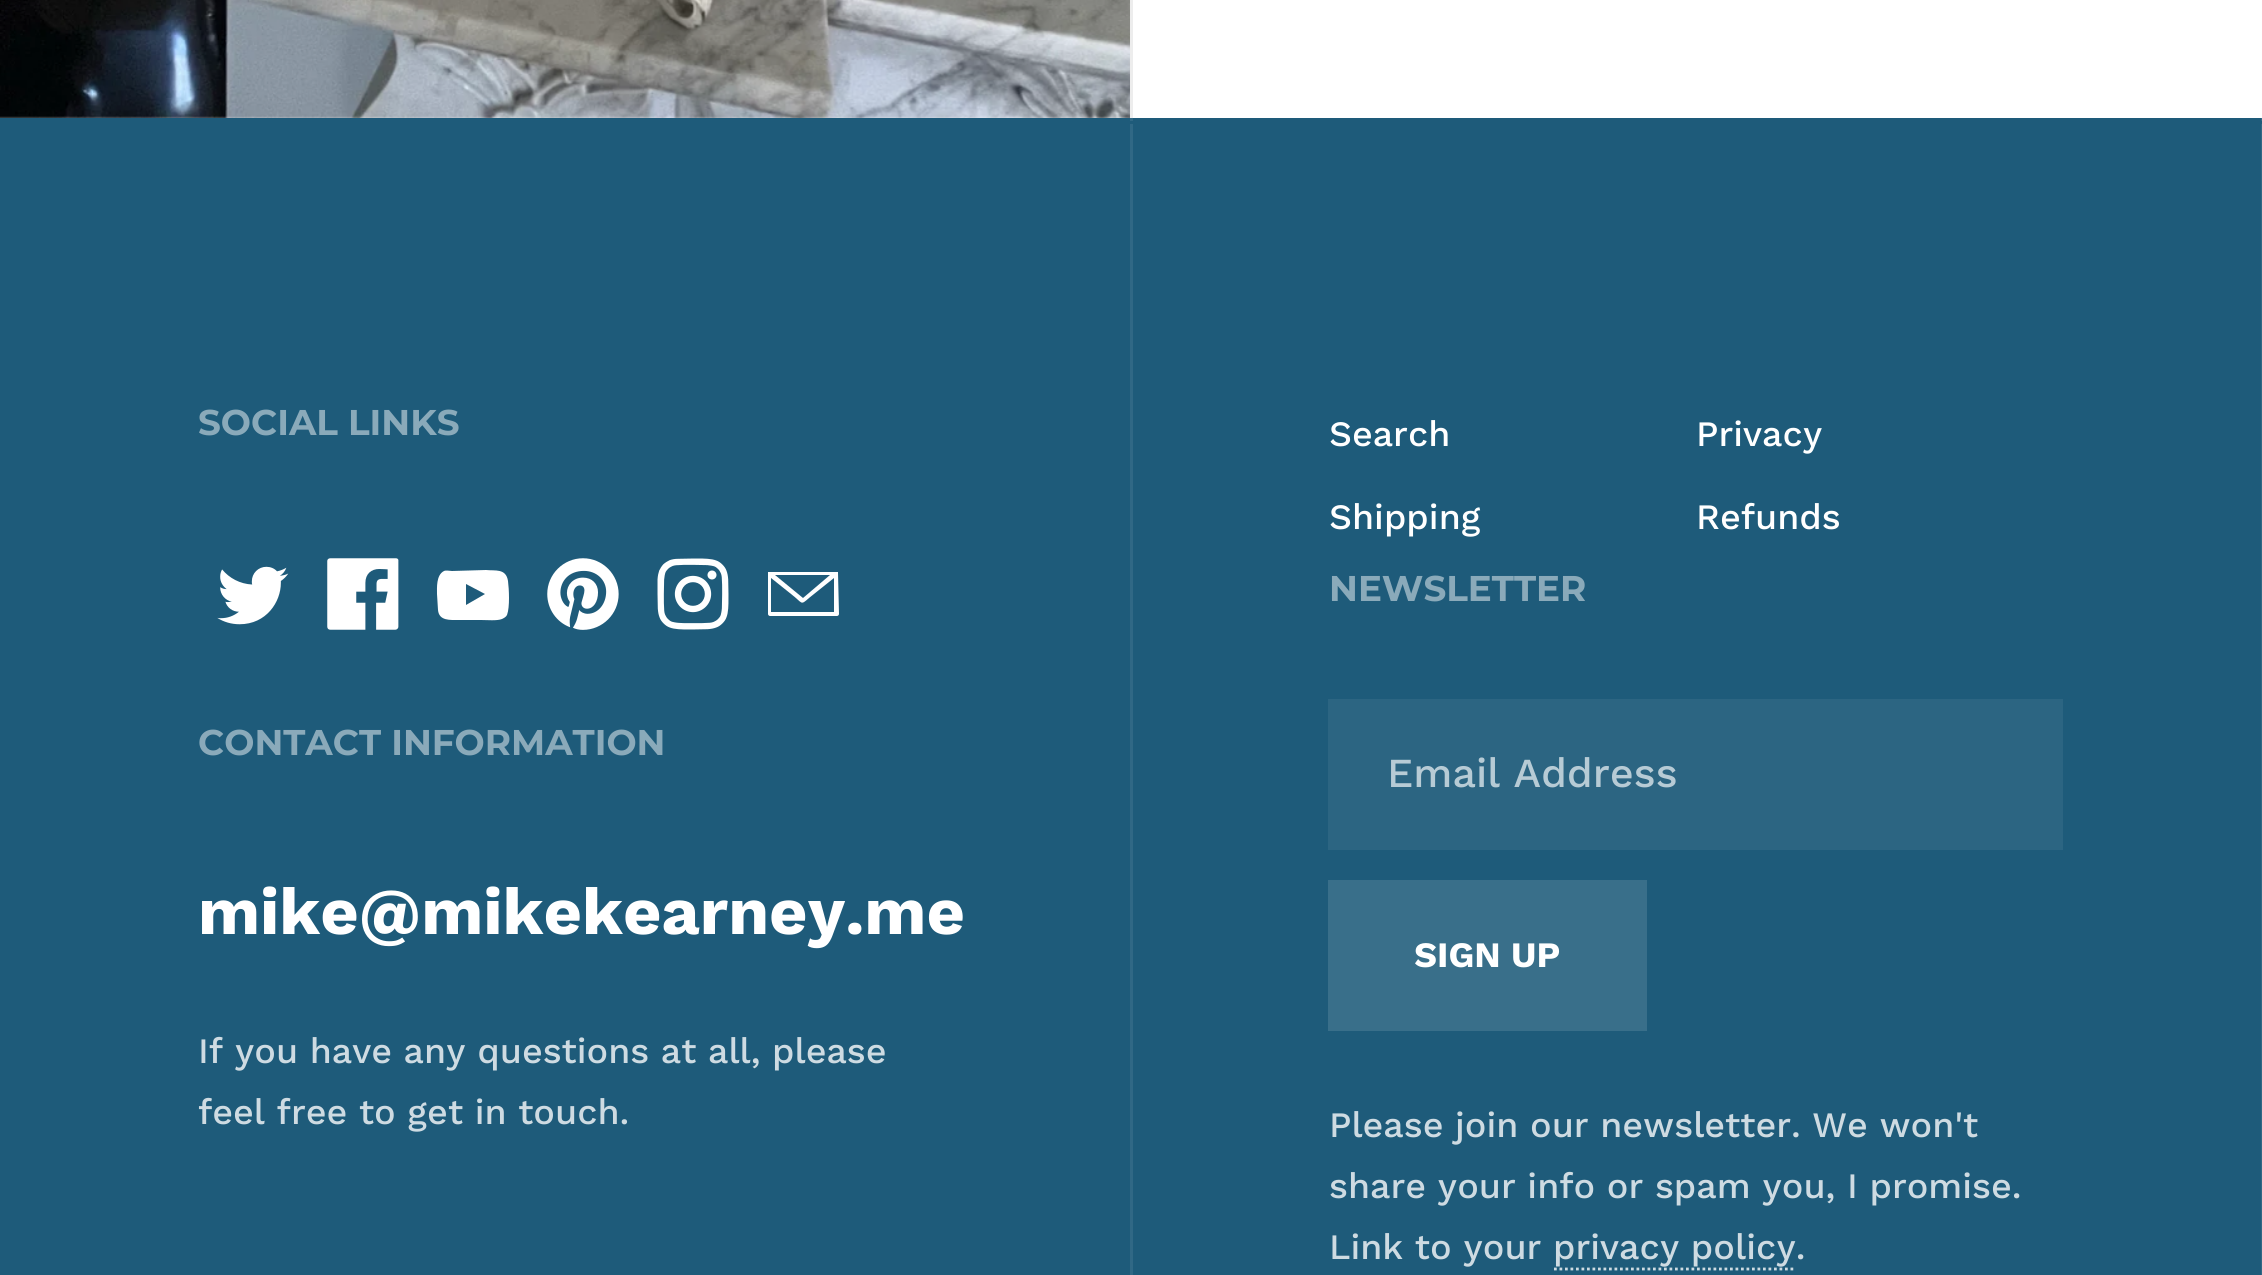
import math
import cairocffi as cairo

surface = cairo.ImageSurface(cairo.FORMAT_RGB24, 2262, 1275)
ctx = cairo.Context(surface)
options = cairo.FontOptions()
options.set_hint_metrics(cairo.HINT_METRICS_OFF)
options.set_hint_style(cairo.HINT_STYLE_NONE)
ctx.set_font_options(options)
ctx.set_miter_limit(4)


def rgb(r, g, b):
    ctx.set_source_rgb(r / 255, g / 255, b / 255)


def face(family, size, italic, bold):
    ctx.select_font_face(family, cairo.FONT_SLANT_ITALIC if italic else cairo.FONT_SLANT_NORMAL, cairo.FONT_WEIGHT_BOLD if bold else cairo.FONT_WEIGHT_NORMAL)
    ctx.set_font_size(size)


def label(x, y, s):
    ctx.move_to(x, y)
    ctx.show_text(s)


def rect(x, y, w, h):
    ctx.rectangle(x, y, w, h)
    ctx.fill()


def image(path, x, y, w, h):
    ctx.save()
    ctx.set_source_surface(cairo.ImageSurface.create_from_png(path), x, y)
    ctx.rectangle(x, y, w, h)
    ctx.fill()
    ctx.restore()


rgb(255, 255, 255)
ctx.paint()
image('image0.png', 0, 0, 1130, 118)
rgb(237, 237, 237)
rect(1130, 0, 3, 121)
rgb(30, 91, 122)
rect(0, 118, 2261, 1157)
rgb(48, 104, 133)
rect(1130, 118, 3, 1157)
rect(2261, 118, 1, 1157)
rgb(30, 91, 122)
rect(1130, 121, 1132, 3)
face('Montserrat', 35.75, 0, 1)
rgb(138, 170, 186)
label(198, 435, 'SOCIAL LINKS')
image('image1.png', 217, 566, 72, 59)
image('image2.png', 327, 558, 72, 72)
rgb(255, 255, 255)
ctx.new_path()
ctx.move_to(508, 581)
ctx.curve_to(506, 568, 495, 571, 486, 570)
ctx.line_to(452, 571)
ctx.curve_to(450, 571, 446, 570, 444, 571)
ctx.curve_to(436, 575, 437, 588, 437, 594)
ctx.line_to(438, 610)
ctx.curve_to(439, 621, 450, 620, 459, 620)
ctx.line_to(481, 620)
ctx.curve_to(487, 620, 497, 621, 502, 619)
ctx.curve_to(504, 618, 506, 617, 507, 615)
ctx.curve_to(510, 607, 509, 589, 508, 581)
ctx.close_path()
ctx.move_to(466, 605)
ctx.line_to(466, 584)
ctx.line_to(485, 594)
ctx.close_path()
ctx.fill()
image('image3.png', 547, 558, 72, 72)
image('image4.png', 657, 558, 72, 72)
ctx.new_path()
ctx.move_to(838, 573)
ctx.line_to(838, 572)
ctx.line_to(768, 572)
ctx.line_to(768, 614)
ctx.curve_to(768, 615, 769, 616, 770, 616)
ctx.line_to(837, 616)
ctx.curve_to(838, 616, 839, 615, 839, 614)
ctx.close_path()
ctx.move_to(830, 575)
ctx.line_to(803, 598)
ctx.line_to(775, 575)
ctx.close_path()
ctx.move_to(771, 612)
ctx.line_to(771, 578)
ctx.line_to(791, 594)
ctx.curve_to(803, 603, 800, 606, 809, 598)
ctx.line_to(834, 578)
ctx.line_to(834, 612)
ctx.close_path()
ctx.fill()
rgb(138, 170, 186)
label(198, 755, 'CONTACT INFORMATION')
face('Work Sans', 66, 0, 1)
rgb(255, 255, 255)
label(198, 934, 'mike@mikekearney.me')
face('Work Sans Medium', 35.75, 0, 0)
rgb(206, 219, 226)
label(198, 1063, 'If you have any questions at all, please')
label(198, 1124, 'feel free to get in touch.')
rgb(255, 255, 255)
label(1329, 446, 'Search')
label(1696, 446, 'Privacy')
label(1329, 529, 'Shipping')
label(1696, 529, 'Refunds')
face('Montserrat', 35.75, 0, 1)
rgb(138, 170, 186)
label(1329, 601, 'NEWSLETTER')
rgb(44, 101, 130)
rect(1328, 699, 735, 151)
face('Work Sans Medium', 41.25, 0, 0)
rgb(183, 203, 213)
label(1387, 787, 'Email Address')
rgb(57, 111, 138)
rect(1328, 880, 319, 151)
face('Work Sans', 35.75, 0, 1)
rgb(255, 255, 255)
label(1414, 967, 'SIGN UP')
face('Work Sans Medium', 35.75, 0, 0)
rgb(206, 219, 226)
label(1329, 1137, 'Please join our newsletter. We won\'t')
label(1329, 1198, 'share your info or spam you, I promise.')
label(1329, 1259, 'Link to your privacy policy.')
ctx.new_path()
ctx.move_to(1554, 1269)
ctx.line_to(1796, 1269)
ctx.set_line_width(2.8)
ctx.set_dash([2.75, 2.75])
ctx.stroke()
surface.write_to_png('render.png')
